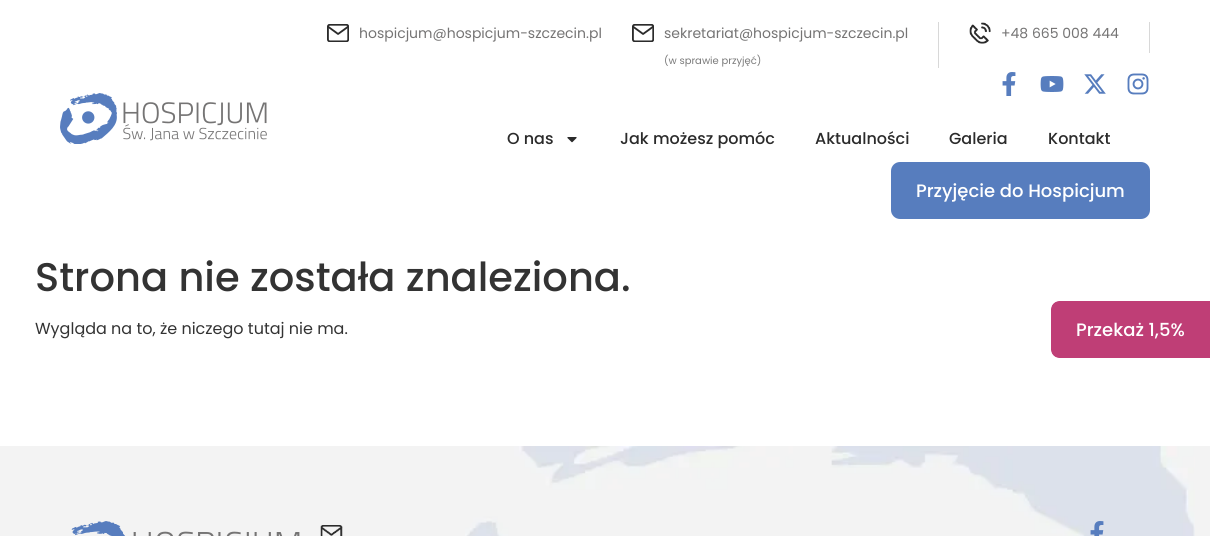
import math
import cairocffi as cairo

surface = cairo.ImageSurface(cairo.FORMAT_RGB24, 1210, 536)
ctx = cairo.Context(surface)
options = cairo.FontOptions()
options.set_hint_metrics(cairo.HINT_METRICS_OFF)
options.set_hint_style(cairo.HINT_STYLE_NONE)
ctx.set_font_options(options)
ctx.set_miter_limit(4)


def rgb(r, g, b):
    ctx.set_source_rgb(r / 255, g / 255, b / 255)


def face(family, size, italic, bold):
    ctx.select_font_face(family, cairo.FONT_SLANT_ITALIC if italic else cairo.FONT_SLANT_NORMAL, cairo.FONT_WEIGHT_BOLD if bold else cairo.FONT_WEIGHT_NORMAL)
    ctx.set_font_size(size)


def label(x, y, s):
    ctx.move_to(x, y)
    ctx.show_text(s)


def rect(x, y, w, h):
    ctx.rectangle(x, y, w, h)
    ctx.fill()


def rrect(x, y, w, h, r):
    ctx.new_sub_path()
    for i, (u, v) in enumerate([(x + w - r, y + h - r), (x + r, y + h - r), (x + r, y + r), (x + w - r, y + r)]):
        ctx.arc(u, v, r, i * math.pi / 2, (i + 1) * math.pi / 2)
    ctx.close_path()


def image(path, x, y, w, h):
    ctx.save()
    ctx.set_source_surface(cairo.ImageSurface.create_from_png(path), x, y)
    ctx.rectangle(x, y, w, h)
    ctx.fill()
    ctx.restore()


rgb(255, 255, 255)
ctx.paint()
image('image0.png', 60, 93, 207, 51)
image('image1.png', 327, 24, 22, 18)
face('Poppins', 14, 0, 0)
rgb(117, 116, 116)
label(359, 38, 'hospicjum@hospicjum-szczecin.pl')
rgb(216, 216, 216)
rect(938, 22, 1, 46)
image('image1.png', 632, 24, 22, 18)
rgb(117, 116, 116)
label(664, 38, 'sekretariat@hospicjum-szczecin.pl')
face('Poppins', 10, 0, 0)
rgb(122, 122, 122)
label(664, 64, '(w sprawie przyjęć)')
rgb(216, 216, 216)
rect(1149, 22, 1, 31)
image('image2.png', 969, 22, 22, 22)
face('Poppins', 14, 0, 0)
rgb(117, 116, 116)
label(1001, 38, '+48 665 008 444')
image('image3.png', 1002, 72, 14, 24)
image('image4.png', 1040, 76, 24, 16)
image('image5.png', 1084, 74, 22, 20)
image('image6.png', 1127, 73, 22, 22)
face('Poppins Medium', 16, 0, 0)
rgb(43, 43, 43)
label(507, 144, 'O nas')
image('image7.png', 567, 137, 10, 6)
label(620, 144, 'Jak możesz pomóc')
label(815, 144, 'Aktualności')
label(949, 144, 'Galeria')
label(1048, 144, 'Kontakt')
rgb(87, 125, 190)
rrect(891, 162, 259, 57, 9)
ctx.fill()
face('Poppins Medium', 18, 0, 0)
rgb(255, 255, 255)
label(916, 197, 'Przyjęcie do Hospicjum')
face('Poppins Medium', 40, 0, 0)
rgb(51, 51, 51)
label(35, 291, 'Strona nie została znaleziona.')
face('Poppins', 16, 0, 0)
label(35, 334, 'Wygląda na to, że niczego tutaj nie ma.')
rgb(191, 62, 118)
ctx.new_path()
ctx.move_to(1059, 301)
ctx.line_to(1210, 301)
ctx.line_to(1210, 358)
ctx.line_to(1059, 358)
ctx.curve_to(1054.5, 358, 1051, 354.5, 1051, 350)
ctx.line_to(1051, 309)
ctx.curve_to(1051, 304.5, 1054.5, 301, 1059, 301)
ctx.close_path()
ctx.fill()
rgb(255, 255, 255)
ctx.set_fill_rule(cairo.FILL_RULE_EVEN_ODD)
ctx.new_path()
ctx.move_to(1059, 300)
ctx.line_to(1210, 300)
ctx.line_to(1210, 359)
ctx.line_to(1059, 359)
ctx.curve_to(1054, 359, 1050, 355, 1050, 350)
ctx.line_to(1050, 309)
ctx.curve_to(1050, 304, 1054, 300, 1059, 300)
ctx.close_path()
ctx.move_to(1059, 301)
ctx.line_to(1210, 301)
ctx.line_to(1210, 358)
ctx.line_to(1059, 358)
ctx.curve_to(1055, 358, 1051, 354, 1051, 350)
ctx.line_to(1051, 309)
ctx.curve_to(1051, 305, 1055, 301, 1059, 301)
ctx.close_path()
ctx.fill()
face('Poppins Medium', 18, 0, 0)
label(1076, 336, 'Przekaż 1,5%')
rgb(243, 243, 243)
rect(0, 446, 1210, 90)
image('image8.png', 465, 446, 730, 90)
image('image9.png', 71, 521, 229, 15)
image('image10.png', 320, 525, 23, 11)
image('image11.png', 1090, 521, 14, 15)
surface.write_to_png('render.png')
